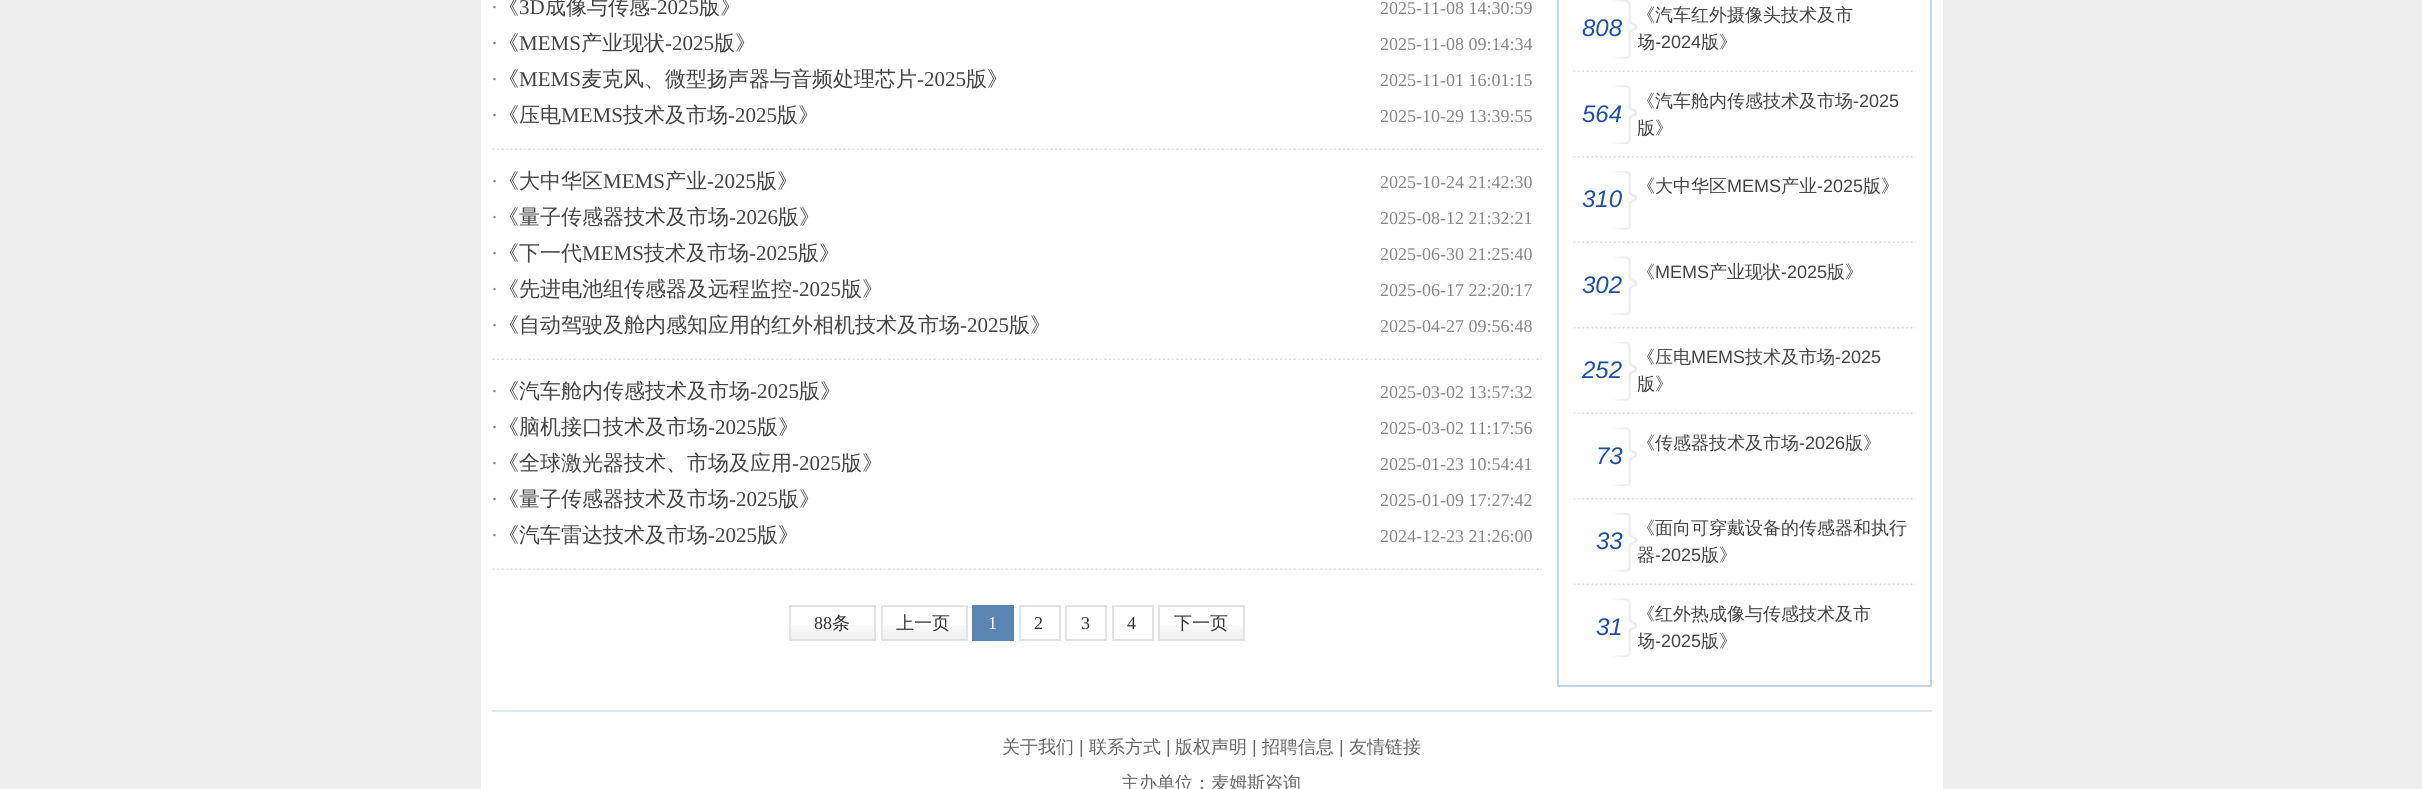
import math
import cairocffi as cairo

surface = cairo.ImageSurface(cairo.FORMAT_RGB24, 2422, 789)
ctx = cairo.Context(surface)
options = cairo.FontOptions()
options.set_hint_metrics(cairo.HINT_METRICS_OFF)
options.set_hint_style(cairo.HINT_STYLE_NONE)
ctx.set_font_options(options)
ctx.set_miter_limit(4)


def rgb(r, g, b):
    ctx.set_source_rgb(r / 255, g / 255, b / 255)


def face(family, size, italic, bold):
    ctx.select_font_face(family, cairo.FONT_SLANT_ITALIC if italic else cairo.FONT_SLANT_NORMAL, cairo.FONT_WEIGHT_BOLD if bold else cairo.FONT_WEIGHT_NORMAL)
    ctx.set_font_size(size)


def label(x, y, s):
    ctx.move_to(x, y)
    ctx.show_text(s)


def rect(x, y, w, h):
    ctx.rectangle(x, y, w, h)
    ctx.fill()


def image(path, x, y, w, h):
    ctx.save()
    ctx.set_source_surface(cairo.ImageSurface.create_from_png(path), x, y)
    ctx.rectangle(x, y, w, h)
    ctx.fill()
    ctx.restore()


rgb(238, 238, 238)
ctx.paint()
rgb(255, 255, 255)
rect(481, 0, 1462, 789)
face('Liberation Serif', 21, 0, 0)
rgb(136, 136, 136)
label(491, 14, '·')
face('WenQuanYi Zen Hei Medium', 21, 0, 0)
rgb(68, 68, 68)
label(498, 14, '《')
face('Liberation Serif', 21, 0, 0)
label(519, 14, '3D')
face('WenQuanYi Zen Hei Medium', 21, 0, 0)
label(545, 14, '成像与传感')
face('Liberation Serif', 21, 0, 0)
label(650, 14, '-2025')
face('WenQuanYi Zen Hei Medium', 21, 0, 0)
label(699, 14, '版》')
face('Liberation Serif', 18, 0, 0)
rgb(136, 136, 136)
label(1380, 14, '2025-11-08 14:30:59')
face('Liberation Serif', 21, 0, 0)
label(491, 50, '·')
face('WenQuanYi Zen Hei Medium', 21, 0, 0)
rgb(68, 68, 68)
label(498, 50, '《')
face('Liberation Serif', 21, 0, 0)
label(519, 50, 'MEMS')
face('WenQuanYi Zen Hei Medium', 21, 0, 0)
label(581, 50, '产业现状')
face('Liberation Serif', 21, 0, 0)
label(665, 50, '-2025')
face('WenQuanYi Zen Hei Medium', 21, 0, 0)
label(714, 50, '版》')
face('Liberation Serif', 18, 0, 0)
rgb(136, 136, 136)
label(1380, 50, '2025-11-08 09:14:34')
face('Liberation Serif', 21, 0, 0)
label(491, 86, '·')
face('WenQuanYi Zen Hei Medium', 21, 0, 0)
rgb(68, 68, 68)
label(498, 86, '《')
face('Liberation Serif', 21, 0, 0)
label(519, 86, 'MEMS')
face('WenQuanYi Zen Hei Medium', 21, 0, 0)
label(581, 86, '麦克风、微型扬声器与音频处理芯片')
face('Liberation Serif', 21, 0, 0)
label(917, 86, '-2025')
face('WenQuanYi Zen Hei Medium', 21, 0, 0)
label(966, 86, '版》')
face('Liberation Serif', 18, 0, 0)
rgb(136, 136, 136)
label(1380, 86, '2025-11-01 16:01:15')
face('Liberation Serif', 21, 0, 0)
label(491, 122, '·')
face('WenQuanYi Zen Hei Medium', 21, 0, 0)
rgb(68, 68, 68)
label(498, 122, '《压电')
face('Liberation Serif', 21, 0, 0)
label(561, 122, 'MEMS')
face('WenQuanYi Zen Hei Medium', 21, 0, 0)
label(623, 122, '技术及市场')
face('Liberation Serif', 21, 0, 0)
label(728, 122, '-2025')
face('WenQuanYi Zen Hei Medium', 21, 0, 0)
label(777, 122, '版》')
face('Liberation Serif', 18, 0, 0)
rgb(136, 136, 136)
label(1380, 122, '2025-10-29 13:39:55')
image('image0.png', 492, 148, 1050, 2)
face('Liberation Serif', 21, 0, 0)
label(491, 188, '·')
face('WenQuanYi Zen Hei Medium', 21, 0, 0)
rgb(68, 68, 68)
label(498, 188, '《大中华区')
face('Liberation Serif', 21, 0, 0)
label(603, 188, 'MEMS')
face('WenQuanYi Zen Hei Medium', 21, 0, 0)
label(665, 188, '产业')
face('Liberation Serif', 21, 0, 0)
label(707, 188, '-2025')
face('WenQuanYi Zen Hei Medium', 21, 0, 0)
label(756, 188, '版》')
face('Liberation Serif', 18, 0, 0)
rgb(136, 136, 136)
label(1380, 188, '2025-10-24 21:42:30')
face('Liberation Serif', 21, 0, 0)
label(491, 224, '·')
face('WenQuanYi Zen Hei Medium', 21, 0, 0)
rgb(68, 68, 68)
label(498, 224, '《量子传感器技术及市场')
face('Liberation Serif', 21, 0, 0)
label(729, 224, '-2026')
face('WenQuanYi Zen Hei Medium', 21, 0, 0)
label(778, 224, '版》')
face('Liberation Serif', 18, 0, 0)
rgb(136, 136, 136)
label(1380, 224, '2025-08-12 21:32:21')
face('Liberation Serif', 21, 0, 0)
label(491, 260, '·')
face('WenQuanYi Zen Hei Medium', 21, 0, 0)
rgb(68, 68, 68)
label(498, 260, '《下一代')
face('Liberation Serif', 21, 0, 0)
label(582, 260, 'MEMS')
face('WenQuanYi Zen Hei Medium', 21, 0, 0)
label(644, 260, '技术及市场')
face('Liberation Serif', 21, 0, 0)
label(749, 260, '-2025')
face('WenQuanYi Zen Hei Medium', 21, 0, 0)
label(798, 260, '版》')
face('Liberation Serif', 18, 0, 0)
rgb(136, 136, 136)
label(1380, 260, '2025-06-30 21:25:40')
face('Liberation Serif', 21, 0, 0)
label(491, 296, '·')
face('WenQuanYi Zen Hei Medium', 21, 0, 0)
rgb(68, 68, 68)
label(498, 296, '《先进电池组传感器及远程监控')
face('Liberation Serif', 21, 0, 0)
label(792, 296, '-2025')
face('WenQuanYi Zen Hei Medium', 21, 0, 0)
label(841, 296, '版》')
face('Liberation Serif', 18, 0, 0)
rgb(136, 136, 136)
label(1380, 296, '2025-06-17 22:20:17')
face('Liberation Serif', 21, 0, 0)
label(491, 332, '·')
face('WenQuanYi Zen Hei Medium', 21, 0, 0)
rgb(68, 68, 68)
label(498, 332, '《自动驾驶及舱内感知应用的红外相机技术及市场')
face('Liberation Serif', 21, 0, 0)
label(960, 332, '-2025')
face('WenQuanYi Zen Hei Medium', 21, 0, 0)
label(1009, 332, '版》')
face('Liberation Serif', 18, 0, 0)
rgb(136, 136, 136)
label(1380, 332, '2025-04-27 09:56:48')
image('image0.png', 492, 358, 1050, 2)
face('Liberation Serif', 21, 0, 0)
label(491, 398, '·')
face('WenQuanYi Zen Hei Medium', 21, 0, 0)
rgb(68, 68, 68)
label(498, 398, '《汽车舱内传感技术及市场')
face('Liberation Serif', 21, 0, 0)
label(750, 398, '-2025')
face('WenQuanYi Zen Hei Medium', 21, 0, 0)
label(799, 398, '版》')
face('Liberation Serif', 18, 0, 0)
rgb(136, 136, 136)
label(1380, 398, '2025-03-02 13:57:32')
face('Liberation Serif', 21, 0, 0)
label(491, 434, '·')
face('WenQuanYi Zen Hei Medium', 21, 0, 0)
rgb(68, 68, 68)
label(498, 434, '《脑机接口技术及市场')
face('Liberation Serif', 21, 0, 0)
label(708, 434, '-2025')
face('WenQuanYi Zen Hei Medium', 21, 0, 0)
label(757, 434, '版》')
face('Liberation Serif', 18, 0, 0)
rgb(136, 136, 136)
label(1380, 434, '2025-03-02 11:17:56')
face('Liberation Serif', 21, 0, 0)
label(491, 470, '·')
face('WenQuanYi Zen Hei Medium', 21, 0, 0)
rgb(68, 68, 68)
label(498, 470, '《全球激光器技术、市场及应用')
face('Liberation Serif', 21, 0, 0)
label(792, 470, '-2025')
face('WenQuanYi Zen Hei Medium', 21, 0, 0)
label(841, 470, '版》')
face('Liberation Serif', 18, 0, 0)
rgb(136, 136, 136)
label(1380, 470, '2025-01-23 10:54:41')
face('Liberation Serif', 21, 0, 0)
label(491, 506, '·')
face('WenQuanYi Zen Hei Medium', 21, 0, 0)
rgb(68, 68, 68)
label(498, 506, '《量子传感器技术及市场')
face('Liberation Serif', 21, 0, 0)
label(729, 506, '-2025')
face('WenQuanYi Zen Hei Medium', 21, 0, 0)
label(778, 506, '版》')
face('Liberation Serif', 18, 0, 0)
rgb(136, 136, 136)
label(1380, 506, '2025-01-09 17:27:42')
face('Liberation Serif', 21, 0, 0)
label(491, 542, '·')
face('WenQuanYi Zen Hei Medium', 21, 0, 0)
rgb(68, 68, 68)
label(498, 542, '《汽车雷达技术及市场')
face('Liberation Serif', 21, 0, 0)
label(708, 542, '-2025')
face('WenQuanYi Zen Hei Medium', 21, 0, 0)
label(757, 542, '版》')
face('Liberation Serif', 18, 0, 0)
rgb(136, 136, 136)
label(1380, 542, '2024-12-23 21:26:00')
image('image0.png', 492, 568, 1050, 2)
image('image1.png', 791, 625, 83, 14)
ctx.rectangle(790, 606, 85, 34)
rgb(227, 227, 227)
ctx.stroke()
rgb(51, 51, 51)
label(814, 629, '88')
face('WenQuanYi Zen Hei Medium', 18, 0, 0)
label(832, 629, '条')
image('image1.png', 883, 625, 83, 14)
ctx.rectangle(882, 606, 85, 34)
rgb(227, 227, 227)
ctx.stroke()
rgb(51, 51, 51)
label(896, 629, '上一页')
rgb(90, 133, 178)
rect(972, 605, 42, 36)
face('Liberation Serif', 18, 0, 0)
rgb(255, 255, 255)
label(988, 629, '1')
ctx.rectangle(1020, 606, 40, 34)
rgb(227, 227, 227)
ctx.stroke()
rgb(51, 51, 51)
label(1034, 629, '2')
ctx.rectangle(1066, 606, 40, 34)
rgb(227, 227, 227)
ctx.stroke()
rgb(51, 51, 51)
label(1081, 629, '3')
ctx.rectangle(1113, 606, 40, 34)
rgb(227, 227, 227)
ctx.stroke()
rgb(51, 51, 51)
label(1127, 629, '4')
image('image1.png', 1160, 625, 83, 14)
ctx.rectangle(1159, 606, 85, 34)
rgb(227, 227, 227)
ctx.stroke()
face('WenQuanYi Zen Hei Medium', 18, 0, 0)
rgb(51, 51, 51)
label(1174, 629, '下一页')
ctx.rectangle(1558, -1, 373, 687)
rgb(195, 212, 231)
ctx.stroke()
rgb(68, 68, 68)
label(1637, 48, '场')
image('image2.png', 1613, 0, 25, 59)
face('Liberation Sans', 24, 1, 0)
rgb(30, 80, 162)
label(1582, 36, '808')
face('WenQuanYi Zen Hei Medium', 18, 0, 0)
rgb(68, 68, 68)
label(1637, 21, '《汽车红外摄像头技术及市')
face('Liberation Sans', 18, 0, 0)
label(1655, 48, '-2024')
face('WenQuanYi Zen Hei Medium', 18, 0, 0)
label(1701, 48, '版》')
image('image3.png', 1573, 70, 343, 2)
label(1637, 134, '版》')
image('image4.png', 1613, 85, 25, 59)
face('Liberation Sans', 24, 1, 0)
rgb(30, 80, 162)
label(1582, 122, '564')
face('WenQuanYi Zen Hei Medium', 18, 0, 0)
rgb(68, 68, 68)
label(1637, 107, '《汽车舱内传感技术及市场')
face('Liberation Sans', 18, 0, 0)
label(1853, 107, '-2025')
image('image5.png', 1573, 156, 343, 2)
face('WenQuanYi Zen Hei Medium', 18, 0, 0)
label(1637, 192, '《大中华区')
face('Liberation Sans', 18, 0, 0)
label(1727, 192, 'MEMS')
face('WenQuanYi Zen Hei Medium', 18, 0, 0)
label(1781, 192, '产业')
face('Liberation Sans', 18, 0, 0)
label(1817, 192, '-2025')
face('WenQuanYi Zen Hei Medium', 18, 0, 0)
label(1863, 192, '版》')
image('image2.png', 1613, 171, 25, 59)
face('Liberation Sans', 24, 1, 0)
rgb(30, 80, 162)
label(1582, 207, '310')
image('image3.png', 1573, 241, 343, 2)
face('WenQuanYi Zen Hei Medium', 18, 0, 0)
rgb(68, 68, 68)
label(1637, 278, '《')
face('Liberation Sans', 18, 0, 0)
label(1655, 278, 'MEMS')
face('WenQuanYi Zen Hei Medium', 18, 0, 0)
label(1709, 278, '产业现状')
face('Liberation Sans', 18, 0, 0)
label(1781, 278, '-2025')
face('WenQuanYi Zen Hei Medium', 18, 0, 0)
label(1827, 278, '版》')
image('image4.png', 1613, 256, 25, 59)
face('Liberation Sans', 24, 1, 0)
rgb(30, 80, 162)
label(1582, 293, '302')
image('image5.png', 1573, 327, 343, 2)
face('WenQuanYi Zen Hei Medium', 18, 0, 0)
rgb(68, 68, 68)
label(1637, 390, '版》')
image('image2.png', 1613, 342, 25, 59)
face('Liberation Sans', 24, 1, 0)
rgb(30, 80, 162)
label(1582, 378, '252')
face('WenQuanYi Zen Hei Medium', 18, 0, 0)
rgb(68, 68, 68)
label(1637, 363, '《压电')
face('Liberation Sans', 18, 0, 0)
label(1691, 363, 'MEMS')
face('WenQuanYi Zen Hei Medium', 18, 0, 0)
label(1745, 363, '技术及市场')
face('Liberation Sans', 18, 0, 0)
label(1835, 363, '-2025')
image('image3.png', 1573, 412, 343, 2)
face('WenQuanYi Zen Hei Medium', 18, 0, 0)
label(1637, 449, '《传感器技术及市场')
face('Liberation Sans', 18, 0, 0)
label(1799, 449, '-2026')
face('WenQuanYi Zen Hei Medium', 18, 0, 0)
label(1845, 449, '版》')
image('image4.png', 1613, 427, 25, 59)
face('Liberation Sans', 24, 1, 0)
rgb(30, 80, 162)
label(1596, 464, '73')
image('image5.png', 1573, 498, 343, 2)
face('WenQuanYi Zen Hei Medium', 18, 0, 0)
rgb(68, 68, 68)
label(1637, 561, '器')
image('image2.png', 1613, 513, 25, 59)
face('Liberation Sans', 24, 1, 0)
rgb(30, 80, 162)
label(1596, 549, '33')
face('WenQuanYi Zen Hei Medium', 18, 0, 0)
rgb(68, 68, 68)
label(1637, 534, '《面向可穿戴设备的传感器和执行')
face('Liberation Sans', 18, 0, 0)
label(1655, 561, '-2025')
face('WenQuanYi Zen Hei Medium', 18, 0, 0)
label(1701, 561, '版》')
image('image3.png', 1573, 583, 343, 2)
label(1637, 647, '场')
image('image4.png', 1613, 598, 25, 59)
face('Liberation Sans', 24, 1, 0)
rgb(30, 80, 162)
label(1596, 635, '31')
face('WenQuanYi Zen Hei Medium', 18, 0, 0)
rgb(68, 68, 68)
label(1637, 620, '《红外热成像与传感技术及市')
face('Liberation Sans', 18, 0, 0)
label(1655, 647, '-2025')
face('WenQuanYi Zen Hei Medium', 18, 0, 0)
label(1701, 647, '版》')
rgb(219, 231, 237)
rect(492, 710, 1440, 2)
rgb(102, 102, 102)
label(1002, 753, '关于我们')
face('Liberation Sans', 18, 0, 0)
label(1079, 753, '|')
face('WenQuanYi Zen Hei Medium', 18, 0, 0)
label(1089, 753, '联系方式')
face('Liberation Sans', 18, 0, 0)
label(1166, 753, '|')
face('WenQuanYi Zen Hei Medium', 18, 0, 0)
label(1175, 753, '版权声明')
face('Liberation Sans', 18, 0, 0)
label(1252, 753, '|')
face('WenQuanYi Zen Hei Medium', 18, 0, 0)
label(1262, 753, '招聘信息')
face('Liberation Sans', 18, 0, 0)
label(1339, 753, '|')
face('WenQuanYi Zen Hei Medium', 18, 0, 0)
label(1349, 753, '友情链接')
label(1121, 789, '主办单位：麦姆斯咨询')
surface.write_to_png('render.png')
